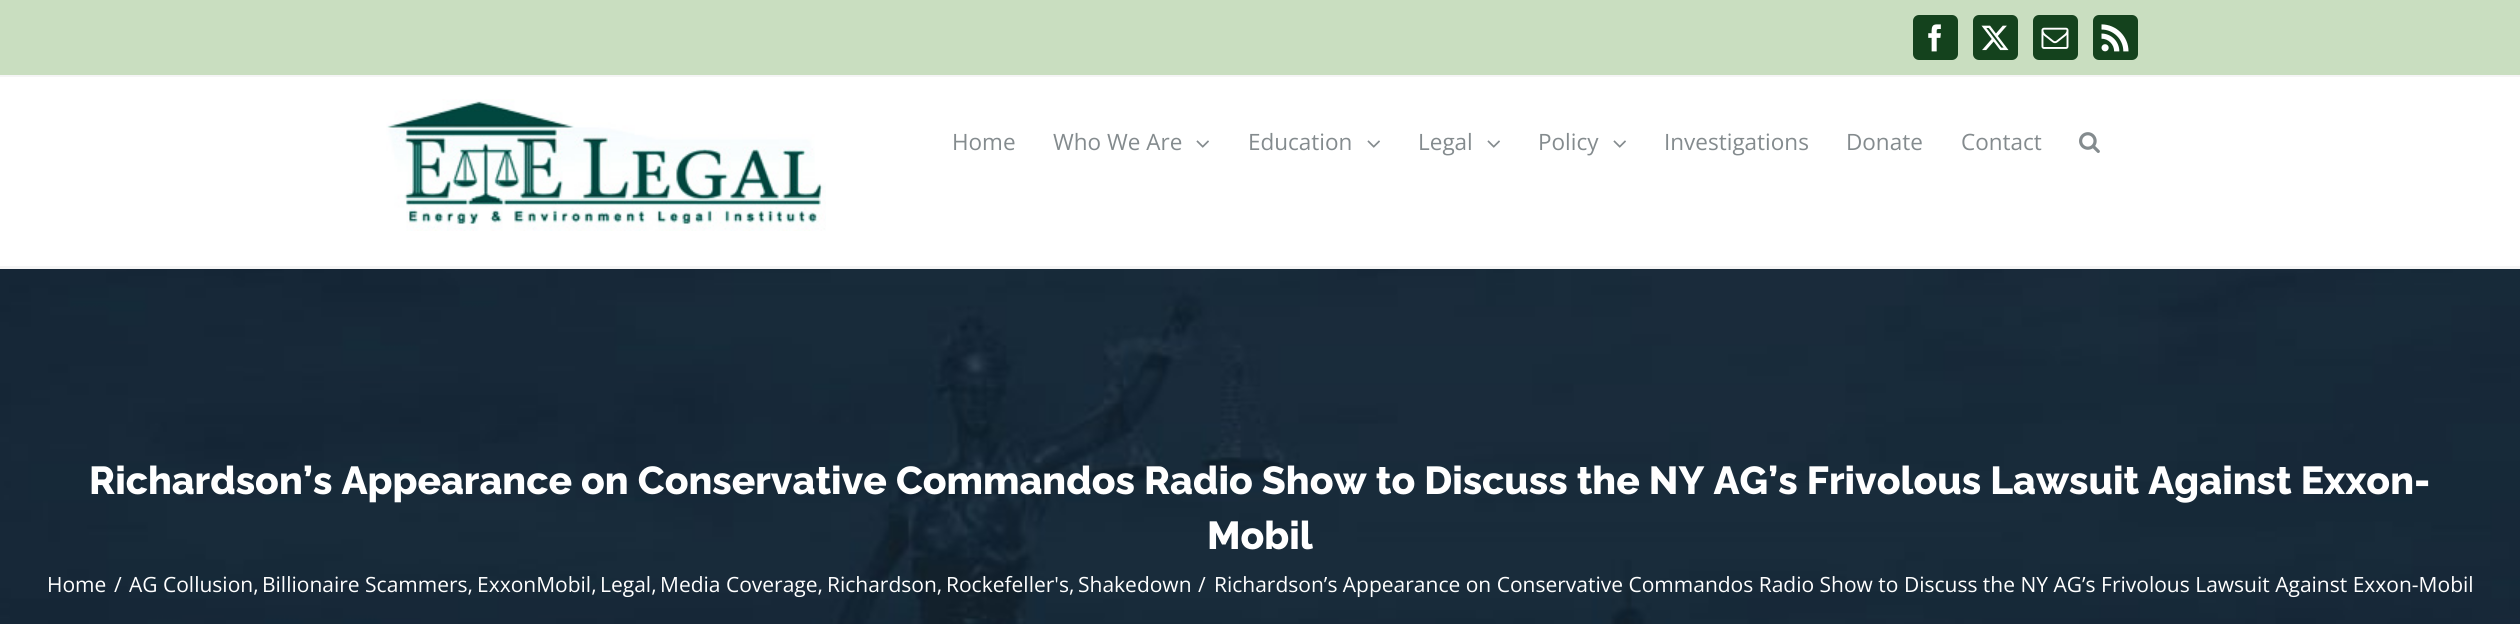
import math
import cairocffi as cairo

surface = cairo.ImageSurface(cairo.FORMAT_RGB24, 2520, 624)
ctx = cairo.Context(surface)
options = cairo.FontOptions()
options.set_hint_metrics(cairo.HINT_METRICS_OFF)
options.set_hint_style(cairo.HINT_STYLE_NONE)
ctx.set_font_options(options)
ctx.set_miter_limit(4)


def rgb(r, g, b):
    ctx.set_source_rgb(r / 255, g / 255, b / 255)


def face(family, size, italic, bold):
    ctx.select_font_face(family, cairo.FONT_SLANT_ITALIC if italic else cairo.FONT_SLANT_NORMAL, cairo.FONT_WEIGHT_BOLD if bold else cairo.FONT_WEIGHT_NORMAL)
    ctx.set_font_size(size)


def label(x, y, s):
    ctx.move_to(x, y)
    ctx.show_text(s)


def rect(x, y, w, h):
    ctx.rectangle(x, y, w, h)
    ctx.fill()


def rrect(x, y, w, h, r):
    ctx.new_sub_path()
    for i, (u, v) in enumerate([(x + w - r, y + h - r), (x + r, y + h - r), (x + r, y + r), (x + w - r, y + r)]):
        ctx.arc(u, v, r, i * math.pi / 2, (i + 1) * math.pi / 2)
    ctx.close_path()


def image(path, x, y, w, h):
    ctx.save()
    ctx.set_source_surface(cairo.ImageSurface.create_from_png(path), x, y)
    ctx.rectangle(x, y, w, h)
    ctx.fill()
    ctx.restore()


rgb(255, 255, 255)
ctx.paint()
rgb(201, 222, 192)
rect(0, 0, 2520, 75)
rgb(245, 245, 245)
rect(0, 75, 2520, 2)
rgb(20, 66, 29)
rrect(1914, 16, 43, 43, 5)
ctx.fill_preserve()
ctx.stroke()
image('image0.png', 1928, 24, 13, 28)
rrect(1974, 16, 43, 43, 5)
ctx.fill_preserve()
ctx.stroke()
image('image1.png', 1981, 25, 28, 26)
rrect(2034, 16, 43, 43, 5)
ctx.fill_preserve()
ctx.stroke()
image('image2.png', 2041, 27, 28, 22)
rrect(2094, 16, 43, 43, 5)
ctx.fill_preserve()
ctx.stroke()
image('image3.png', 2101, 24, 28, 28)
image('image4.png', 386, 99, 440, 132)
face('Open Sans', 22.5, 0, 0)
rgb(132, 139, 142)
label(952, 150, 'Home')
label(1053, 150, 'Who We Are')
image('image5.png', 1196, 140, 13, 8)
label(1248, 150, 'Education')
image('image5.png', 1367, 140, 13, 8)
label(1418, 150, 'Legal')
image('image5.png', 1487, 140, 13, 8)
label(1538, 150, 'Policy')
image('image5.png', 1613, 140, 13, 8)
label(1664, 150, 'Investigations')
label(1846, 150, 'Donate')
label(1961, 150, 'Contact')
image('image6.png', 2079, 132, 21, 21)
image('image7.png', 0, 269, 2520, 355)
rgb(245, 245, 245)
rect(0, 266, 2520, 3)
face('Raleway Thin', 39, 0, 0)
rgb(255, 255, 255)
label(89, 494, 'Richardson’s Appearance on Conservative Commandos Radio Show to Discuss the NY AG’s Frivolous Lawsuit Against Exxon-')
label(1207, 549, 'Mobil')
face('Open Sans', 21, 0, 0)
label(47, 592, 'Home')
label(114, 592, '/')
label(129, 592, 'AG Collusion,')
label(262, 592, 'Billionaire Scammers,')
label(477, 592, 'ExxonMobil,')
label(600, 592, 'Legal,')
label(660, 592, 'Media Coverage,')
label(827, 592, 'Richardson,')
label(946, 592, 'Rockefeller\'s,')
label(1078, 592, 'Shakedown')
label(1198, 592, '/')
label(1214, 592, 'Richardson’s Appearance on Conservative Commandos Radio Show to Discuss the NY AG’s Frivolous Lawsuit Against Exxon-Mobil')
surface.write_to_png('render.png')
